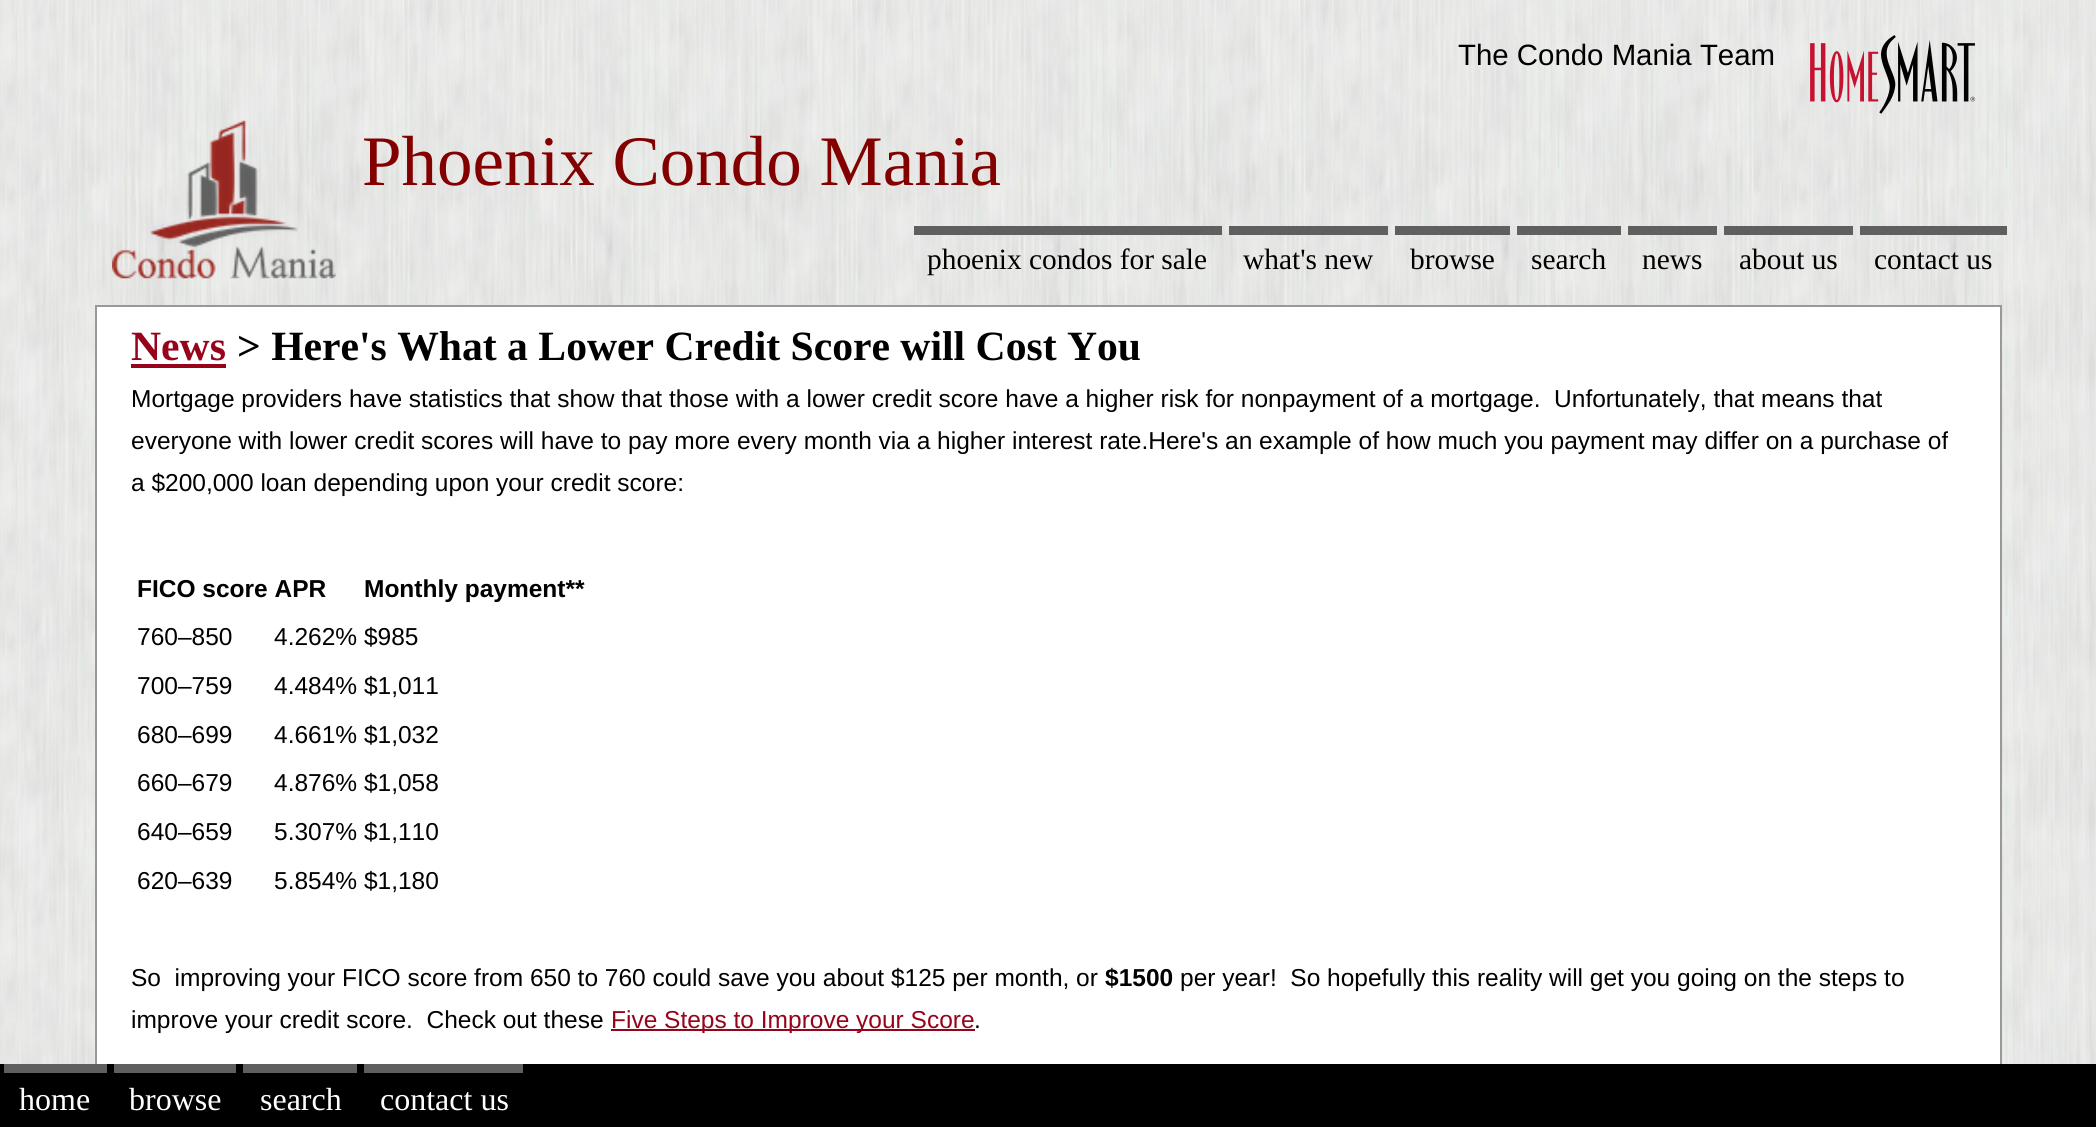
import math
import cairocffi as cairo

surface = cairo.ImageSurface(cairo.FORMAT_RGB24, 2096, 1127)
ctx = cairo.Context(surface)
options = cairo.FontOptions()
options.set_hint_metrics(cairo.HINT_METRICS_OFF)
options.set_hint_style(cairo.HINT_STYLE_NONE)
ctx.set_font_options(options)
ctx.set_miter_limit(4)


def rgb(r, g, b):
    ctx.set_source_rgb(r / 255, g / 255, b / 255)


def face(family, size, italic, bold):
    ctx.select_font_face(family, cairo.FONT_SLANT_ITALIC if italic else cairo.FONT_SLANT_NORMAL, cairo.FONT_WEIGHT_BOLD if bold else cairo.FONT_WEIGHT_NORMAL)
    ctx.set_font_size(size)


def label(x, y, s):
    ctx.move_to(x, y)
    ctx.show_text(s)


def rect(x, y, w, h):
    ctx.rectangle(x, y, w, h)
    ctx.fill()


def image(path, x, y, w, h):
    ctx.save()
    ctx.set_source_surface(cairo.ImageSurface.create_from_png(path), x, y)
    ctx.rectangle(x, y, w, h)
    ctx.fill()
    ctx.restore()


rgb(255, 255, 255)
ctx.paint()
image('image0.png', 0, 0, 2096, 1064)
face('Liberation Sans', 29.4, 0, 0)
rgb(0, 0, 0)
label(1458, 65, 'The Condo Mania Team')
image('image1.png', 1810, 35, 166, 79)
image('image2.png', 112, 120, 224, 159)
face('Liberation Serif', 71, 0, 0)
rgb(130, 0, 0)
label(362, 185, 'Phoenix Condo Mania')
rgb(95, 95, 95)
rect(914, 226, 308, 9)
face('Liberation Serif', 29.4, 0, 0)
rgb(0, 0, 0)
label(927, 269, 'phoenix condos for sale')
rgb(95, 95, 95)
rect(1229, 226, 159, 9)
rgb(0, 0, 0)
label(1243, 269, 'what\'s new')
rgb(95, 95, 95)
rect(1395, 226, 115, 9)
rgb(0, 0, 0)
label(1410, 269, 'browse')
rgb(95, 95, 95)
rect(1517, 226, 104, 9)
rgb(0, 0, 0)
label(1531, 269, 'search')
rgb(95, 95, 95)
rect(1628, 226, 89, 9)
rgb(0, 0, 0)
label(1642, 269, 'news')
rgb(95, 95, 95)
rect(1724, 226, 129, 9)
rgb(0, 0, 0)
label(1739, 269, 'about us')
rgb(95, 95, 95)
rect(1860, 226, 147, 9)
rgb(0, 0, 0)
label(1874, 269, 'contact us')
rgb(255, 255, 255)
rect(97, 307, 1903, 757)
ctx.rectangle(96, 306, 1905, 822)
rgb(153, 153, 153)
ctx.stroke()
face('Liberation Serif', 41.65, 0, 1)
rgb(150, 3, 26)
label(131, 360, 'News')
rect(131, 364, 95, 4)
rgb(0, 0, 0)
label(237, 360, '> Here\'s What a Lower Credit Score will Cost You')
face('Liberation Sans', 24.5, 0, 0)
label(131, 407, 'Mortgage providers have statistics that show that those with a lower credit score have a higher risk for nonpayment of a mortgage.  Unfortunately, that means that')
label(131, 449, 'everyone with lower credit scores will have to pay more every month via a higher interest rate.Here\'s an example of how much you payment may differ on a purchase of')
label(131, 491, 'a $200,000 loan depending upon your credit score:')
face('Liberation Sans', 24.5, 0, 1)
label(137, 597, 'FICO score APR')
label(364, 597, 'Monthly payment**')
face('Liberation Sans', 24.5, 0, 0)
label(137, 645, '760–850')
label(274, 645, '4.262% $985')
label(137, 694, '700–759')
label(274, 694, '4.484% $1,011')
label(137, 743, '680–699')
label(274, 743, '4.661% $1,032')
label(137, 791, '660–679')
label(274, 791, '4.876% $1,058')
label(137, 840, '640–659')
label(274, 840, '5.307% $1,110')
label(137, 889, '620–639')
label(274, 889, '5.854% $1,180')
label(131, 986, 'So  improving your FICO score from 650 to 760 could save you about $125 per month, or')
face('Liberation Sans', 24.5, 0, 1)
label(1105, 986, '$1500')
face('Liberation Sans', 24.5, 0, 0)
label(1180, 986, 'per year!  So hopefully this reality will get you going on the steps to')
label(131, 1028, 'improve your credit score.  Check out these')
rgb(150, 3, 26)
rect(611, 1029, 364, 2)
label(611, 1028, 'Five Steps to Improve your Score')
rgb(0, 0, 0)
label(974, 1028, '.')
rect(0, 1064, 2096, 63)
rgb(95, 95, 95)
rect(4, 1064, 103, 9)
face('Liberation Serif', 32, 0, 0)
rgb(255, 255, 255)
label(19, 1110, 'home')
rgb(95, 95, 95)
rect(114, 1064, 122, 9)
rgb(255, 255, 255)
label(129, 1110, 'browse')
rgb(95, 95, 95)
rect(243, 1064, 114, 9)
rgb(255, 255, 255)
label(260, 1110, 'search')
rgb(95, 95, 95)
rect(364, 1064, 159, 9)
rgb(255, 255, 255)
label(380, 1110, 'contact us')
surface.write_to_png('render.png')
